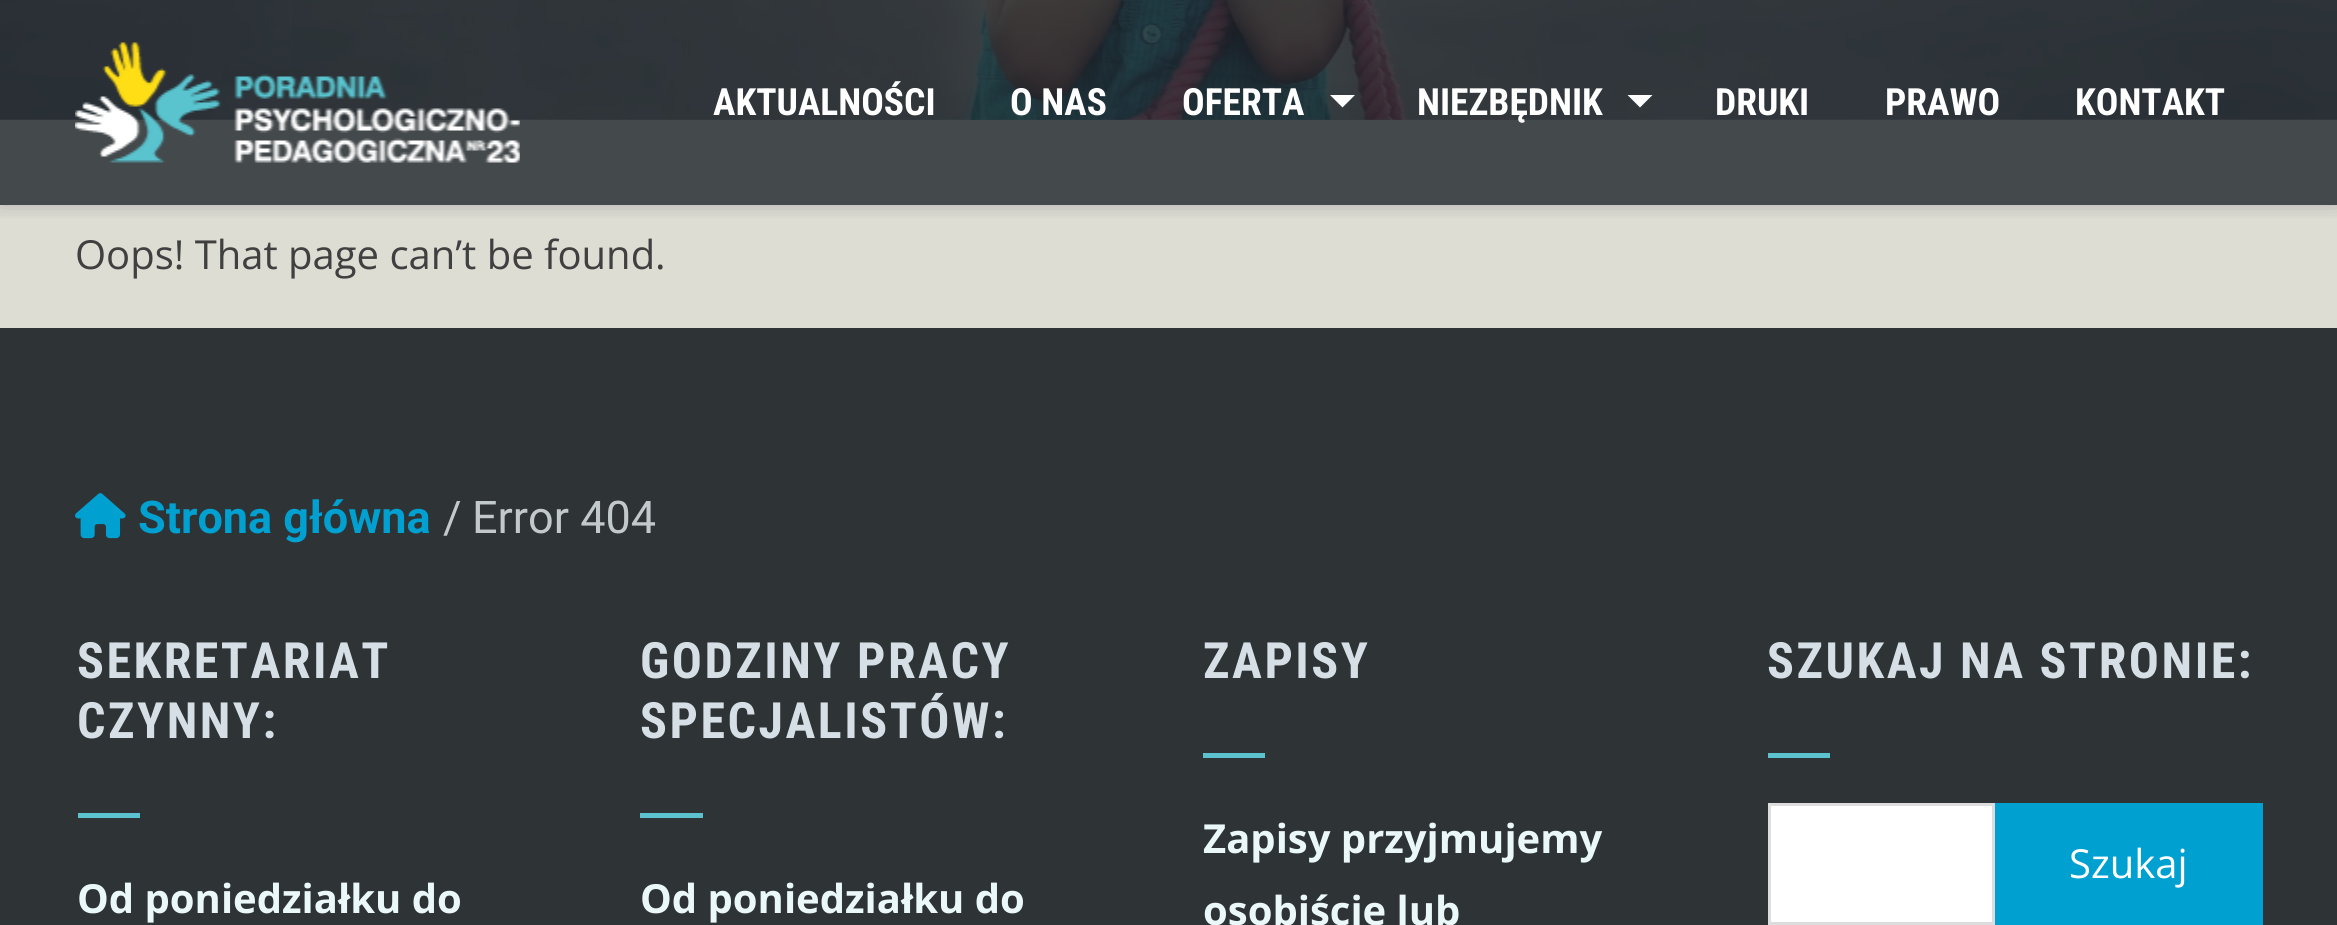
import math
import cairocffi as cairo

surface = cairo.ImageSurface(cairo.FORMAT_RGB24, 2337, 925)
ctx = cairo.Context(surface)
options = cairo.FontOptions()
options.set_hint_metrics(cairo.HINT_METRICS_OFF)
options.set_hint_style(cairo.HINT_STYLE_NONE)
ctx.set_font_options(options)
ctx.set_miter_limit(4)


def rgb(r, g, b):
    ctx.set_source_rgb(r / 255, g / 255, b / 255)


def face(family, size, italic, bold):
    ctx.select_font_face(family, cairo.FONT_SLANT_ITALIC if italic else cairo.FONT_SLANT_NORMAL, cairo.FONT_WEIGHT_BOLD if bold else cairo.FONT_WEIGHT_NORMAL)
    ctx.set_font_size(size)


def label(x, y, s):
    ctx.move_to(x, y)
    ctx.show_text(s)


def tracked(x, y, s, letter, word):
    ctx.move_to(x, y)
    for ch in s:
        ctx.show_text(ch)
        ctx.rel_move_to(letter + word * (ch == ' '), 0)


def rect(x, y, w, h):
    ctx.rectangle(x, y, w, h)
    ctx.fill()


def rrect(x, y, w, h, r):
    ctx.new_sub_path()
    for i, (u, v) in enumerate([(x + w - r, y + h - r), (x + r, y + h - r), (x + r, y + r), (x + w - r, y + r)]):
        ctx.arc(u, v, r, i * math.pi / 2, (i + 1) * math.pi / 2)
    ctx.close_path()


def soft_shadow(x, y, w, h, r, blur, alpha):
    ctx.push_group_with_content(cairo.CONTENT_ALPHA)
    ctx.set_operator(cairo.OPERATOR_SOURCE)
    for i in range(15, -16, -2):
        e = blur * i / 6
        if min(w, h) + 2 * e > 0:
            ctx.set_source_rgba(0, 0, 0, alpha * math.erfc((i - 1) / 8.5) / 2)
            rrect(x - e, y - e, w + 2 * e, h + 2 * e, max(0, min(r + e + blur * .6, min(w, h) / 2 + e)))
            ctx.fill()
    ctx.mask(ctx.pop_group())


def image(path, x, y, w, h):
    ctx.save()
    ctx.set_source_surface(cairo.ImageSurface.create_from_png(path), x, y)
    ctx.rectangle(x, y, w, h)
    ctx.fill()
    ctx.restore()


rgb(221, 221, 212)
ctx.paint()
rgb(68, 73, 76)
rect(0, 120, 2337, 85)
image('image1.png', 0, 0, 2337, 120)
ctx.save()
ctx.rectangle(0, 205, 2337, 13)
ctx.clip()
rgb(0, 0, 0)
soft_shadow(0, 0, 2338, 205, 0, 10, 0.2)
ctx.restore()
image('image0.png', 75, 42, 445, 121)
face('Roboto Condensed', 37.5, 0, 1)
rgb(255, 255, 255)
label(713, 115, 'AKTUALNOŚCI')
label(1010, 115, 'O NAS')
label(1182, 115, 'OFERTA')
ctx.new_path()
ctx.move_to(1330, 95)
ctx.line_to(1355, 95)
ctx.line_to(1342.5, 107.5)
ctx.close_path()
ctx.fill()
label(1417, 115, 'NIEZBĘDNIK')
ctx.new_path()
ctx.move_to(1627.5, 95)
ctx.line_to(1652.5, 95)
ctx.line_to(1640, 107.5)
ctx.close_path()
ctx.fill()
label(1715, 115, 'DRUKI')
label(1885, 115, 'PRAWO')
label(2075, 115, 'KONTAKT')
face('Open Sans', 40, 0, 0)
rgb(64, 64, 64)
label(75, 269, 'Oops! That page can’t be found.')
rgb(46, 51, 54)
rect(0, 328, 2337, 597)
image('image2.png', 75, 493, 51, 46)
face('Roboto', 45, 0, 1)
rgb(0, 160, 209)
label(138, 533, 'Strona główna')
face('Roboto', 45, 0, 0)
rgb(194, 201, 203)
label(443, 533, '/')
label(472, 533, 'Error 404')
face('Roboto Condensed', 50, 0, 1)
rgb(213, 223, 229)
tracked(77, 678, 'SEKRETARIAT', 2.5, 0)
tracked(77, 738, 'CZYNNY:', 2.5, 0)
rgb(91, 194, 206)
rect(78, 813, 62, 5)
face('Open Sans', 40, 0, 1)
rgb(235, 248, 250)
label(77, 913, 'Od poniedziałku do')
face('Roboto Condensed', 50, 0, 1)
rgb(213, 223, 229)
tracked(640, 678, 'GODZINY PRACY', 2.5, 0)
tracked(640, 738, 'SPECJALISTÓW:', 2.5, 0)
rgb(91, 194, 206)
rect(640, 813, 63, 5)
face('Open Sans', 40, 0, 1)
rgb(235, 248, 250)
label(640, 913, 'Od poniedziałku do')
face('Roboto Condensed', 50, 0, 1)
rgb(213, 223, 229)
tracked(1203, 678, 'ZAPISY', 2.5, 0)
rgb(91, 194, 206)
rect(1203, 753, 62, 5)
face('Open Sans', 40, 0, 1)
rgb(235, 248, 250)
label(1203, 853, 'Zapisy przyjmujemy')
label(1203, 925, 'osobiście lub')
face('Roboto Condensed', 50, 0, 1)
rgb(213, 223, 229)
tracked(1767, 678, 'SZUKAJ NA STRONIE:', 2.5, 0)
rgb(91, 194, 206)
rect(1768, 753, 62, 5)
rgb(255, 255, 255)
ctx.rectangle(1769.5, 804.5, 224, 119)
ctx.fill_preserve()
rgb(221, 221, 221)
ctx.set_line_width(3)
ctx.stroke()
rgb(0, 160, 209)
rect(1995, 803, 268, 122)
face('Open Sans', 40, 0, 0)
rgb(255, 255, 255)
label(2069, 878, 'Szukaj')
surface.write_to_png('render.png')
